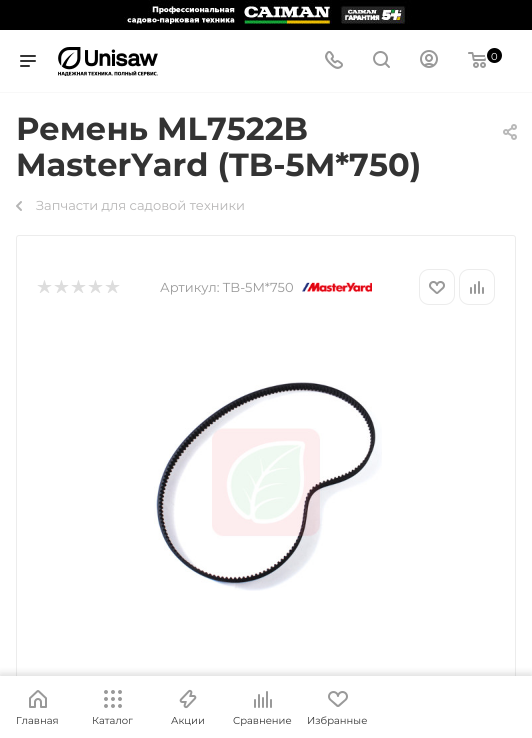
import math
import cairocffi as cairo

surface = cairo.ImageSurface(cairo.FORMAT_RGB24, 532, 738)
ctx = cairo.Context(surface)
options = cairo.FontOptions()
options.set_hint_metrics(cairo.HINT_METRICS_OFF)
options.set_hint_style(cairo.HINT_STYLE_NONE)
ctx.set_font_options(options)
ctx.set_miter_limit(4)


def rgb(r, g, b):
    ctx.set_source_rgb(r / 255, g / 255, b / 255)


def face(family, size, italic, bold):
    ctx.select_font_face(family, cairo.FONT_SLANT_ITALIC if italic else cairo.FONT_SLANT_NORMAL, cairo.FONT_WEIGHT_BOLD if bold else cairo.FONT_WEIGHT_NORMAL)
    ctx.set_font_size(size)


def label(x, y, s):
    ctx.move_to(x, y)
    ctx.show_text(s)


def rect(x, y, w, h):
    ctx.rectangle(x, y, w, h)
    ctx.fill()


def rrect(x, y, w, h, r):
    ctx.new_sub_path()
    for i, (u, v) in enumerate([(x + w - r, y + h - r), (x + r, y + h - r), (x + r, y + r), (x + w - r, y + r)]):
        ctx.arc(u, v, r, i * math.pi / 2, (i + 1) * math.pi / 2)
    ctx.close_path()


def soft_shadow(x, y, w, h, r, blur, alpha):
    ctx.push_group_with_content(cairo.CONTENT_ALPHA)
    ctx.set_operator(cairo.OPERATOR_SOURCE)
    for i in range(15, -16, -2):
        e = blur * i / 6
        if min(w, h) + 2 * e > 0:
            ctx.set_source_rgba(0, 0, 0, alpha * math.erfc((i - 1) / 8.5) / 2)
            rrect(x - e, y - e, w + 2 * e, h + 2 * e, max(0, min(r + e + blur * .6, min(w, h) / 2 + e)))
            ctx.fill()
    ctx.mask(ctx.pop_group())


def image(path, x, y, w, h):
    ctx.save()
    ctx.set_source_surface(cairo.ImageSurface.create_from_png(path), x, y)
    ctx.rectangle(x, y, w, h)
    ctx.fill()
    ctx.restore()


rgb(255, 255, 255)
ctx.paint()
image('image0.png', 0, 0, 532, 30)
rgb(248, 248, 248)
rect(0, 92, 532, 1)
image('image1.png', 20, 55, 16, 12)
image('image2.png', 58, 47, 100, 29)
image('image3.png', 325, 51, 18, 18)
image('image4.png', 373, 51, 17, 17)
image('image5.png', 420, 50, 18, 18)
image('image6.png', 468, 52, 19, 16)
rgb(0, 0, 0)
ctx.arc(494.5, 55.5, 8.5, 0, 2 * math.pi)
ctx.fill_preserve()
rgb(255, 255, 255)
ctx.stroke()
face('Montserrat', 10, 0, 0)
label(491, 60, '0')
face('Montserrat', 32, 0, 1)
rgb(51, 51, 51)
label(16, 140, 'Ремень ML7522B')
label(16, 176, 'MasterYard (TB-5M*750)')
image('image7.png', 503, 124, 14, 16)
image('image8.png', 16, 201, 6, 10)
face('Montserrat', 13, 0, 0)
rgb(182, 181, 181)
label(36, 210, 'Запчасти для садовой техники')
rrect(16.5, 235.5, 499, 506, 2.5)
rgb(236, 236, 236)
ctx.set_line_width(1)
ctx.stroke()
image('image9.png', 37, 280, 15, 13)
image('image9.png', 54, 280, 15, 13)
image('image9.png', 71, 280, 15, 13)
image('image9.png', 88, 280, 15, 13)
image('image9.png', 105, 280, 15, 13)
rgb(153, 153, 153)
label(160, 292, 'Артикул: TB-5M*750')
image('image10.png', 302, 282, 70, 11)
rrect(419.5, 269.5, 35, 35, 9.5)
rgb(236, 236, 236)
ctx.stroke()
image('image11.png', 429, 281, 16, 13)
rrect(459.5, 269.5, 35, 35, 9.5)
ctx.stroke()
image('image12.png', 470, 281, 14, 13)
image('image13.png', 154, 381, 228, 210)
rgb(0, 0, 0)
soft_shadow(0, 674, 532, 62, 0, 4, 0.15)
rgb(255, 255, 255)
rect(0, 676, 532, 62)
image('image14.png', 29, 690, 18, 18)
face('Montserrat', 10, 0, 0)
rgb(51, 51, 51)
label(16, 724, 'Главная')
image('image15.png', 104, 690, 18, 18)
label(92, 724, 'Каталог')
image('image16.png', 179, 689, 18, 20)
label(171, 724, 'Акции')
image('image17.png', 254, 691, 18, 17)
label(233, 724, 'Сравнение')
image('image18.png', 328, 691, 20, 16)
label(307, 724, 'Избранные')
surface.write_to_png('render.png')
